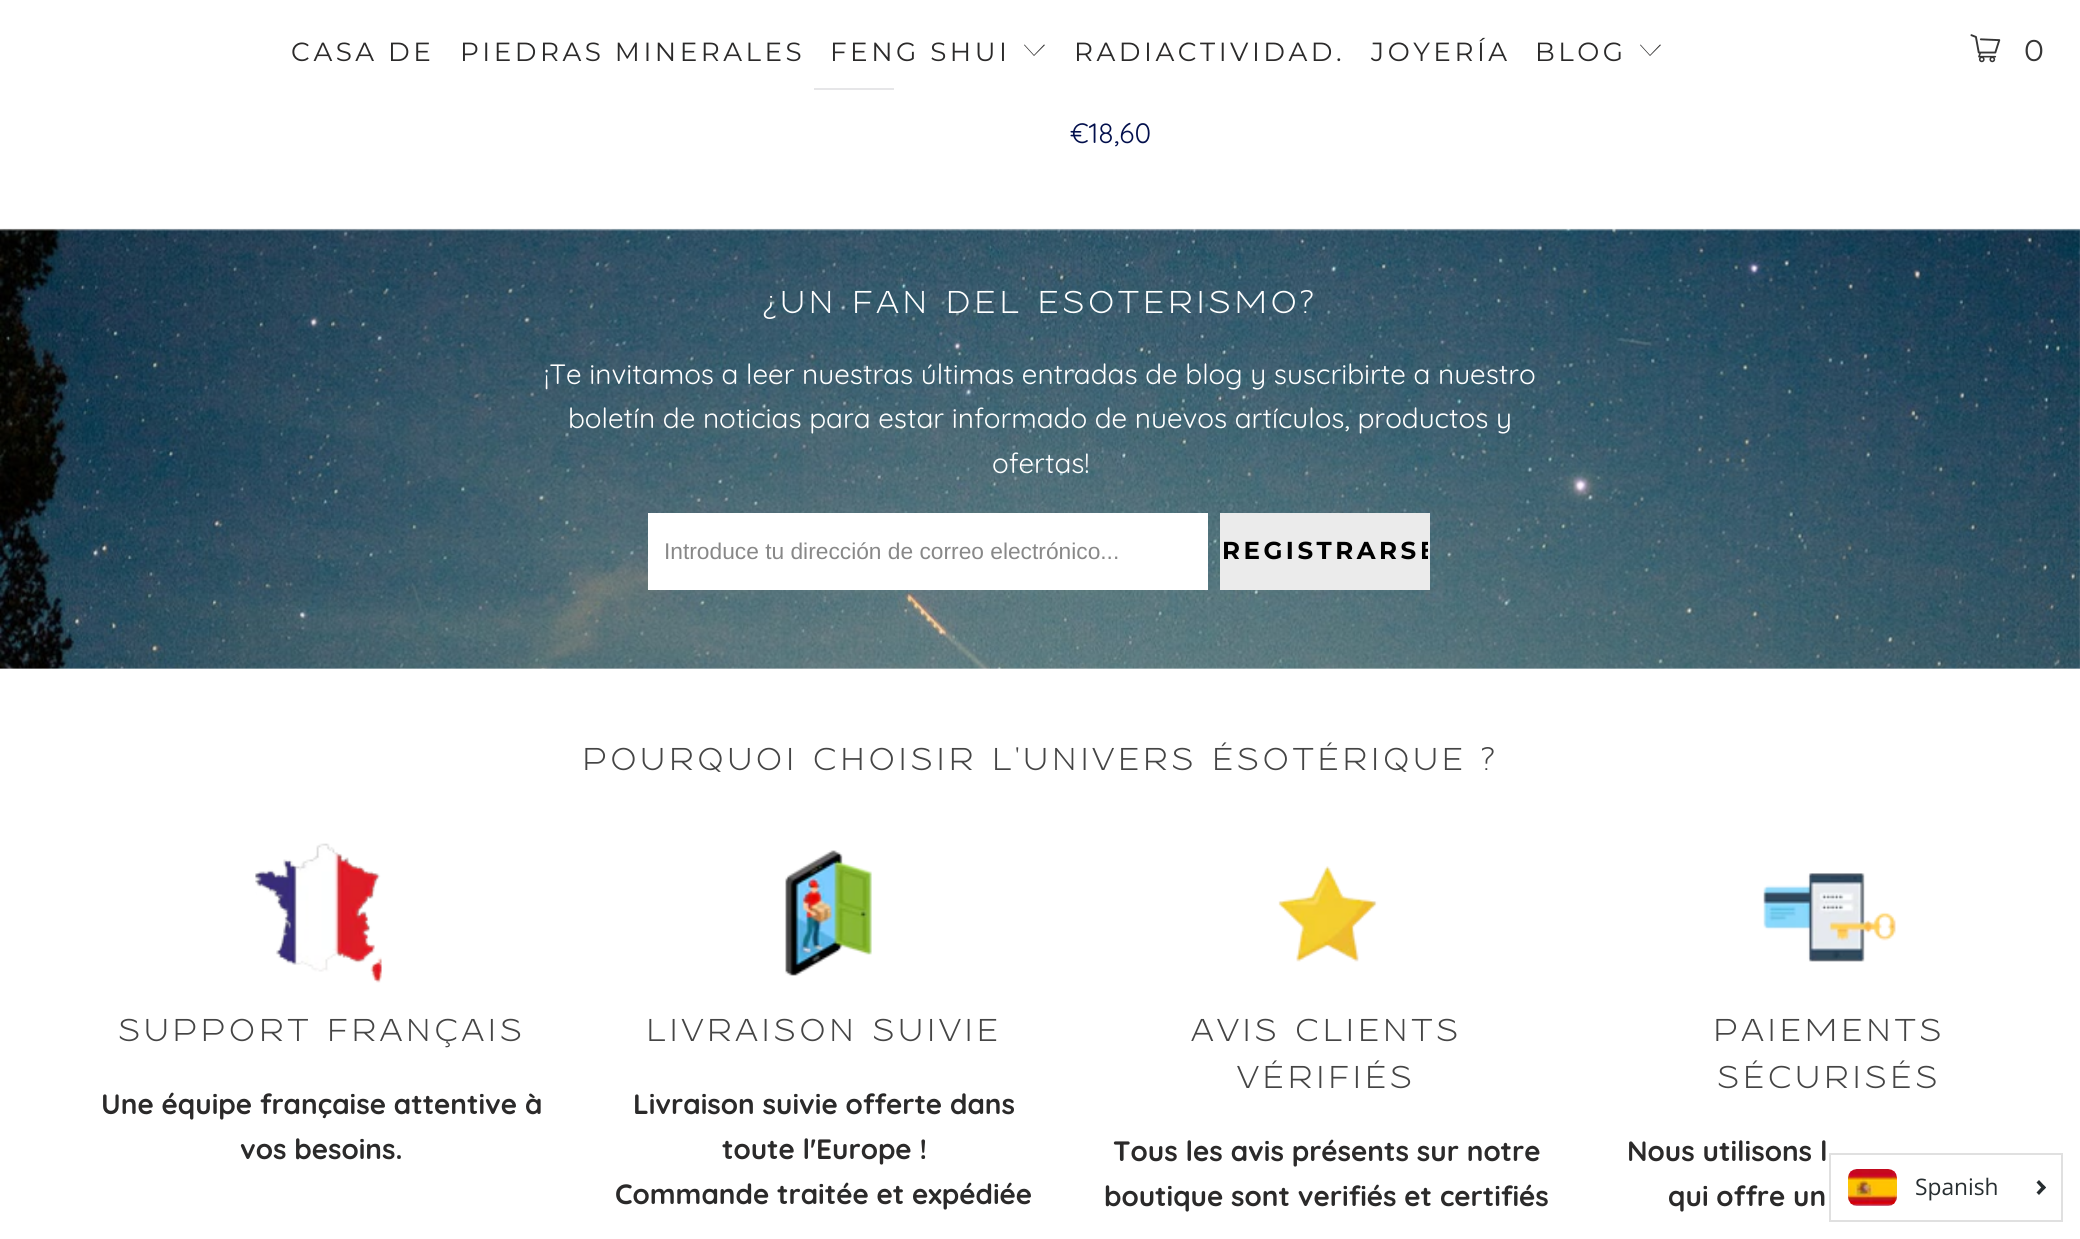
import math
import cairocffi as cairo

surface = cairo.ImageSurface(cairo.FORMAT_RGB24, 2080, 1239)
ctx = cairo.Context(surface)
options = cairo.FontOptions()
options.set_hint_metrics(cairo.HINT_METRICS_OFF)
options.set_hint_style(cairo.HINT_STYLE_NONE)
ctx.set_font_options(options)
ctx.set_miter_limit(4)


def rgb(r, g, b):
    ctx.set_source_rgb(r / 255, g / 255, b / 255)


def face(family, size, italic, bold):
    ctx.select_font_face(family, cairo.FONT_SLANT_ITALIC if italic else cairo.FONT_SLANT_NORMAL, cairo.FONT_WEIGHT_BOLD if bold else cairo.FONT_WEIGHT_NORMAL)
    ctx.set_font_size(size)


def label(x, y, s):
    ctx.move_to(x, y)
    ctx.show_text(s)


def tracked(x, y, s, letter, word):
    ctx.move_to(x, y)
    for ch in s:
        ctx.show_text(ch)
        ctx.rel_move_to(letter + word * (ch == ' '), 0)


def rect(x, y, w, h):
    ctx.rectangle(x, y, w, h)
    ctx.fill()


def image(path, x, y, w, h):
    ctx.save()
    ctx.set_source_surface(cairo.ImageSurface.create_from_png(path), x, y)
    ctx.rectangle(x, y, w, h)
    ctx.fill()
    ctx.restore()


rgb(255, 255, 255)
ctx.paint()
rgb(1, 3, 21)
rect(814, 88, 80, 2)
ctx.set_source_rgba(1, 1, 1, 0.9)
rect(814, 88, 80, 2)
face('Montserrat', 26.25, 0, 0)
rgb(43, 42, 42)
tracked(291, 61, 'CASA DE', 3.5, 0)
tracked(460, 61, 'PIEDRAS MINERALES', 3.5, 0)
tracked(830, 61, 'FENG SHUI', 3.5, 0)
ctx.new_path()
ctx.move_to(1034, 56)
ctx.line_to(1024, 45)
ctx.line_to(1024.5, 44.5)
ctx.line_to(1034, 55)
ctx.line_to(1044, 44.5)
ctx.line_to(1045, 45)
ctx.close_path()
ctx.fill()
tracked(1074, 61, 'RADIACTIVIDAD.', 3.5, 0)
tracked(1371, 61, 'JOYERÍA', 3.5, 0)
tracked(1535, 61, 'BLOG', 3.5, 0)
ctx.new_path()
ctx.move_to(1650, 56)
ctx.line_to(1640, 45)
ctx.line_to(1640.5, 44.5)
ctx.line_to(1650, 55)
ctx.line_to(1660, 44.5)
ctx.line_to(1661, 45)
ctx.close_path()
ctx.fill()
image('image0.png', 1970, 34, 31, 29)
face('Montserrat', 30, 0, 0)
rgb(54, 54, 54)
tracked(2024, 61, '0', 2, 0)
face('Quicksand', 28, 0, 0)
rgb(2, 15, 76)
label(1070, 143, '€18,60')
rgb(242, 241, 241)
rect(0, 229, 2080, 440)
image('image1.png', 0, 228, 2080, 441)
face('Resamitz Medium', 31.5, 0, 0)
rgb(255, 255, 255)
tracked(763, 313, '¿UN FAN DEL ESOTERISMO?', 3.5, 0)
face('Quicksand', 28, 0, 0)
label(544, 384, '¡Te invitamos a leer nuestras últimas entradas de blog y suscribirte a nuestro')
label(568, 428, 'boletín de noticias para estar informado de nuevos artículos, productos y')
label(992, 473, 'ofertas!')
rect(648, 513, 560, 77)
face('Liberation Sans', 22.75, 0, 0)
rgb(136, 136, 136)
label(664, 559, 'Introduce tu dirección de correo electrónico...')
rgb(235, 235, 235)
rect(1220, 513, 210, 77)
ctx.save()
ctx.rectangle(1222, 515, 206, 73)
ctx.clip()
face('Montserrat', 24.5, 0, 1)
rgb(0, 0, 0)
tracked(1222, 559, 'REGISTRARSE', 3.5, 0)
ctx.restore()
face('Resamitz Medium', 31.5, 0, 0)
rgb(69, 69, 69)
tracked(582, 770, 'POURQUOI CHOISIR L\'UNIVERS ÉSOTÉRIQUE ?', 3.5, 0)
image('image2.png', 255, 843, 127, 140)
tracked(118, 1041, 'SUPPORT FRANÇAIS', 3.5, 0)
face('Quicksand', 28, 0, 1)
rgb(43, 42, 42)
label(101, 1114, 'Une équipe française attentive à')
label(240, 1159, 'vos besoins.')
image('image3.png', 785, 850, 87, 126)
face('Resamitz Medium', 31.5, 0, 0)
rgb(69, 69, 69)
tracked(646, 1041, 'LIVRAISON SUIVIE', 3.5, 0)
face('Quicksand', 28, 0, 1)
rgb(43, 42, 42)
label(633, 1114, 'Livraison suivie offerte dans')
label(722, 1159, 'toute l\'Europe !')
label(615, 1204, 'Commande traitée et expédiée')
image('image4.png', 1278, 866, 100, 96)
face('Resamitz Medium', 31.5, 0, 0)
rgb(69, 69, 69)
tracked(1191, 1041, 'AVIS CLIENTS', 3.5, 0)
tracked(1237, 1088, 'VÉRIFIÉS', 3.5, 0)
face('Quicksand', 28, 0, 1)
rgb(43, 42, 42)
label(1113, 1161, 'Tous les avis présents sur notre')
label(1104, 1206, 'boutique sont verifiés et certifiés')
image('image5.png', 1763, 873, 133, 89)
face('Resamitz Medium', 31.5, 0, 0)
rgb(69, 69, 69)
tracked(1713, 1041, 'PAIEMENTS', 3.5, 0)
tracked(1717, 1088, 'SÉCURISÉS', 3.5, 0)
face('Quicksand', 28, 0, 1)
rgb(43, 42, 42)
label(1627, 1161, 'Nous utilisons l')
label(1668, 1206, 'qui offre un')
ctx.rectangle(1830, 1154, 232, 67)
rgb(224, 224, 224)
ctx.stroke()
image('image6.png', 1848, 1169, 49, 37)
face('Open Sans', 22.75, 0, 0)
rgb(39, 46, 49)
label(1915, 1195, 'Spanish')
ctx.new_path()
ctx.move_to(2039, 1180)
ctx.line_to(2046, 1187.5)
ctx.line_to(2043.5, 1190)
ctx.line_to(2036.5, 1182.5)
ctx.close_path()
ctx.fill()
ctx.new_path()
ctx.move_to(2043.5, 1185)
ctx.line_to(2046, 1187.5)
ctx.line_to(2039, 1195)
ctx.line_to(2036.5, 1192.5)
ctx.close_path()
ctx.fill()
surface.write_to_png('render.png')
